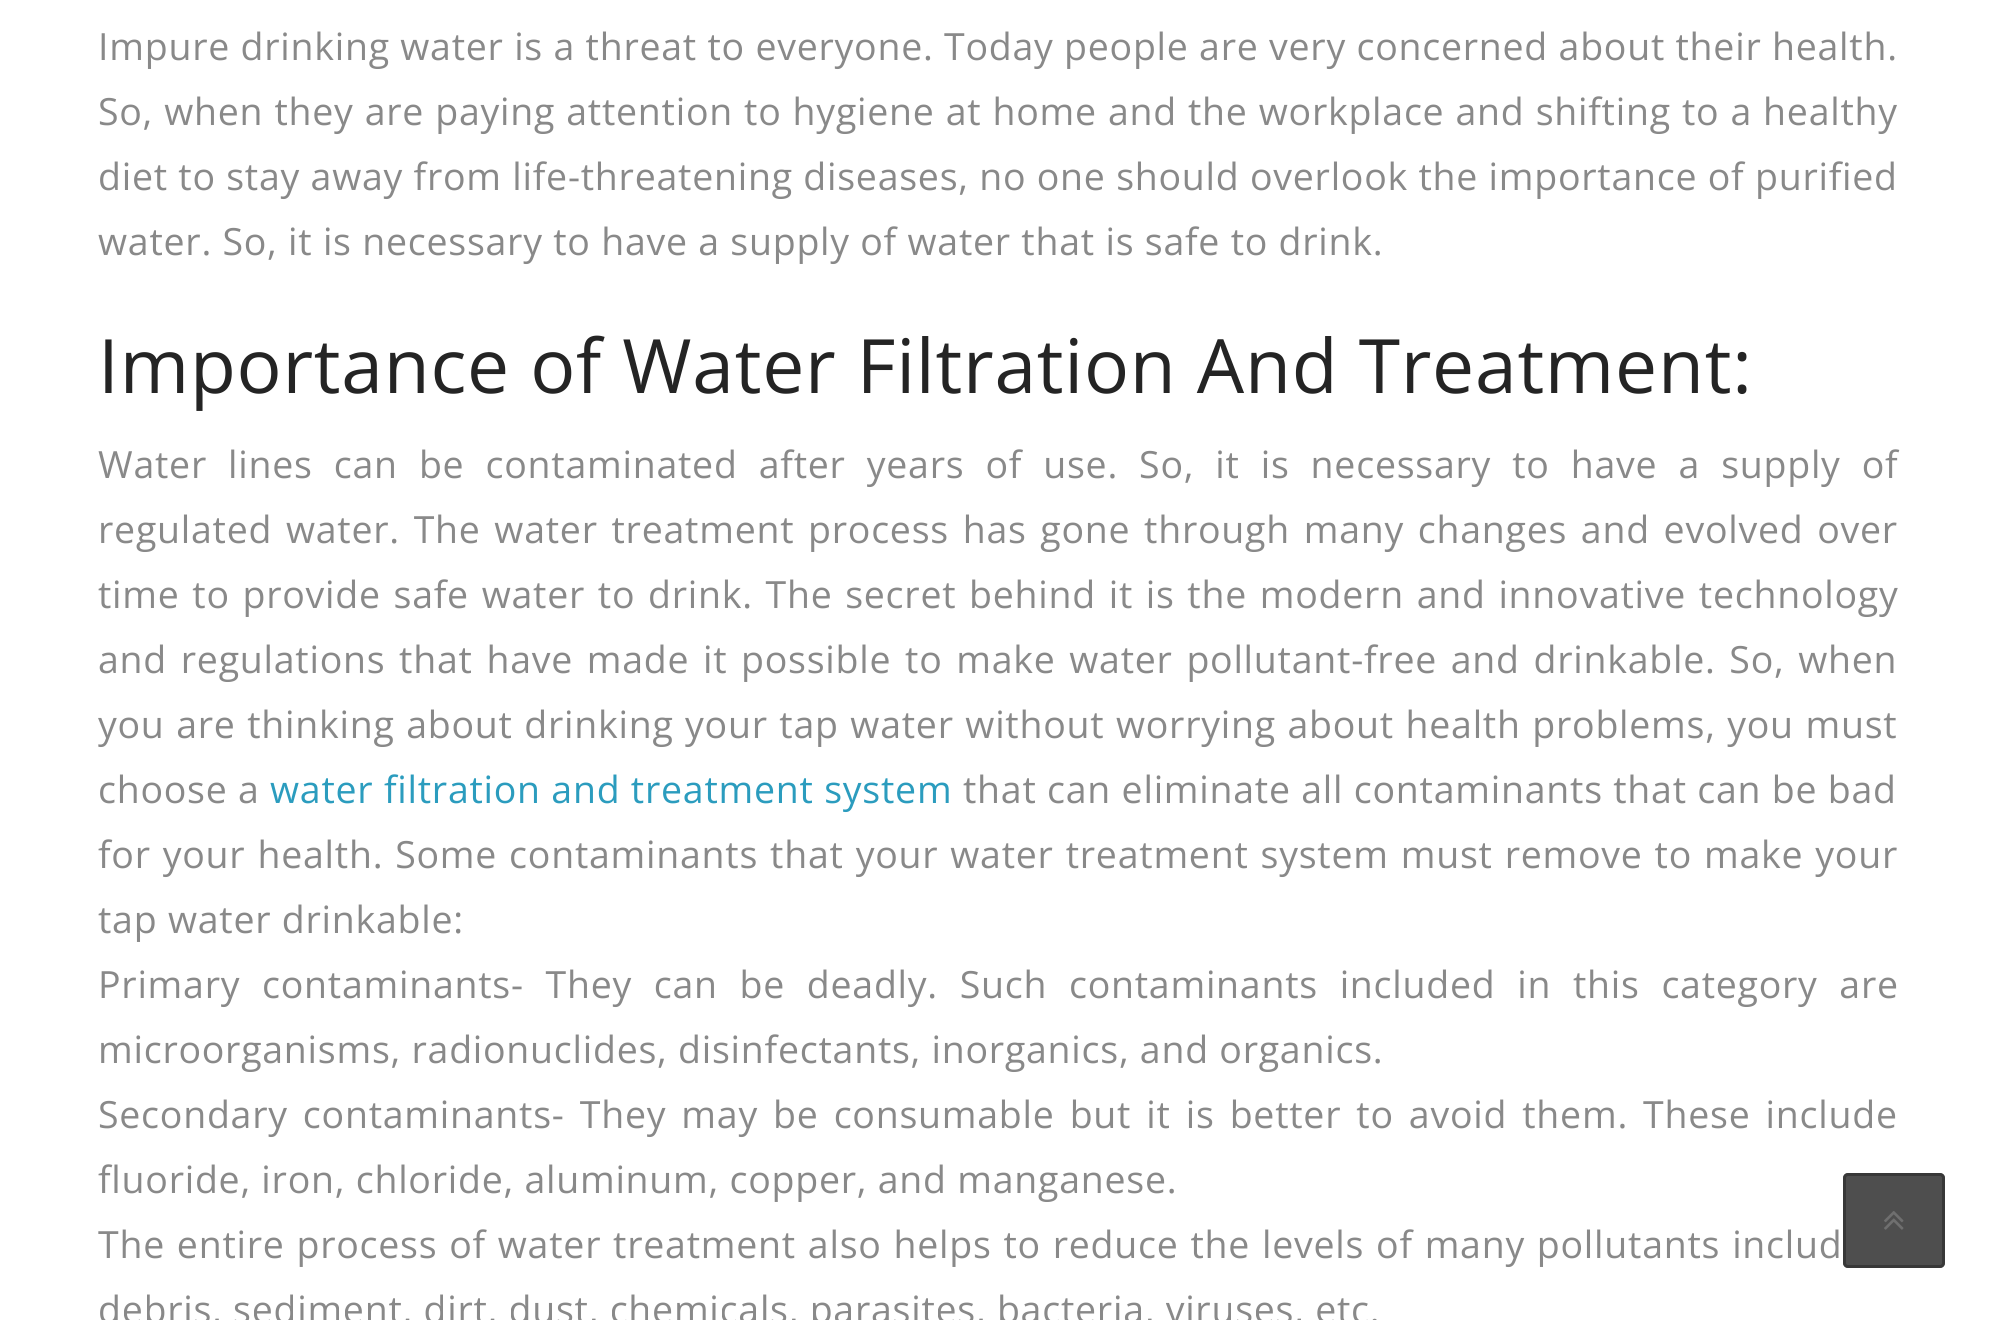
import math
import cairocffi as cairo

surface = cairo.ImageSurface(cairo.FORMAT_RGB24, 1994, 1320)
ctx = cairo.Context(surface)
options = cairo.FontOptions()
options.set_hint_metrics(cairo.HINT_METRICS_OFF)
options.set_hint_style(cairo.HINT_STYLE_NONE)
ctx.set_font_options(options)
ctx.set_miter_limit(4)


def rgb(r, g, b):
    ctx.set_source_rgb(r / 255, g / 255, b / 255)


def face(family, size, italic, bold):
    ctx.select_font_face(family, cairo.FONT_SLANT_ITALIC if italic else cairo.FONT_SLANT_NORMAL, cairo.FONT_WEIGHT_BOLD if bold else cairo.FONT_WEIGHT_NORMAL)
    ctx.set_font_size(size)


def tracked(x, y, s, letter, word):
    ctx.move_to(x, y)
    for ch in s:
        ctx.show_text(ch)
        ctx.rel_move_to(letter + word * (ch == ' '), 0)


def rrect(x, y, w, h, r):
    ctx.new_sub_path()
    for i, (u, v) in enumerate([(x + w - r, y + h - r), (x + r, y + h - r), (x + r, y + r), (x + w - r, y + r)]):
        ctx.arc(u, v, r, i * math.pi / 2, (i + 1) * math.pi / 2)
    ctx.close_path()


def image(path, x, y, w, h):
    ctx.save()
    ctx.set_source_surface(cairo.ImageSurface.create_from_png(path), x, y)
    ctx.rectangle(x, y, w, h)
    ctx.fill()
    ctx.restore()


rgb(255, 255, 255)
ctx.paint()
face('Open Sans', 37.5, 0, 0)
rgb(137, 137, 137)
tracked(98, 60, 'Impure drinking water is a threat to everyone. Today people are very concerned about their health.', 0.75, 0)
tracked(98, 125, 'So, when they are paying attention to hygiene at home and the workplace and shifting to a healthy', 0.75, 0.6)
tracked(98, 190, 'diet to stay away from life-threatening diseases, no one should overlook the importance of purified', 0.75, 0)
tracked(98, 255, 'water. So, it is necessary to have a supply of water that is safe to drink.', 0.75, 0)
face('Open Sans', 75, 0, 0)
rgb(36, 36, 36)
tracked(98, 393, 'Importance of Water Filtration And Treatment:', 0.75, 0)
face('Open Sans', 37.5, 0, 0)
rgb(137, 137, 137)
tracked(98, 478, 'Water lines can be contaminated after years of use. So, it is necessary to have a supply of', 0.75, 10.6)
tracked(98, 543, 'regulated water. The water treatment process has gone through many changes and evolved over', 0.75, 3.25)
tracked(98, 608, 'time to provide safe water to drink. The secret behind it is the modern and innovative technology', 0.75, 2.25)
tracked(98, 673, 'and regulations that have made it possible to make water pollutant-free and drinkable. So, when', 0.75, 3.25)
tracked(98, 738, 'you are thinking about drinking your tap water without worrying about health problems, you must', 0.75, 1.1)
tracked(98, 803, 'choose a', 0.75, 0)
rgb(43, 156, 190)
tracked(270, 803, 'water filtration and treatment system', 0.75, 0)
rgb(137, 137, 137)
tracked(963, 803, 'that can eliminate all contaminants that can be bad', 0.75, 0)
tracked(98, 868, 'for your health. Some contaminants that your water treatment system must remove to make your', 0.75, 1.5)
tracked(98, 933, 'tap water drinkable:', 0.75, 0)
tracked(98, 998, 'Primary contaminants- They can be deadly. Such contaminants included in this category are', 0.75, 11.25)
tracked(98, 1063, 'microorganisms, radionuclides, disinfectants, inorganics, and organics.', 0.75, 0)
tracked(98, 1128, 'Secondary contaminants- They may be consumable but it is better to avoid them. These include', 0.75, 4.6)
tracked(98, 1193, 'fluoride, iron, chloride, aluminum, copper, and manganese.', 0.75, 0)
tracked(98, 1258, 'The entire process of water treatment also helps to reduce the levels of many pollutants includ', 0.75, 1.4)
tracked(98, 1323, 'debris, sediment, dirt, dust, chemicals, parasites, bacteria, viruses, etc.', 0.75, 0)
ctx.set_source_rgba(0.133, 0.133, 0.133, 0.8)
rrect(1843, 1173, 102, 95, 5)
ctx.fill()
rrect(1844.5, 1174.5, 99, 92, 3.5)
ctx.set_source_rgba(0.2, 0.2, 0.2, 0.8)
ctx.set_line_width(3)
ctx.stroke()
image('image0.png', 1884, 1211, 20, 19)
surface.write_to_png('render.png')
